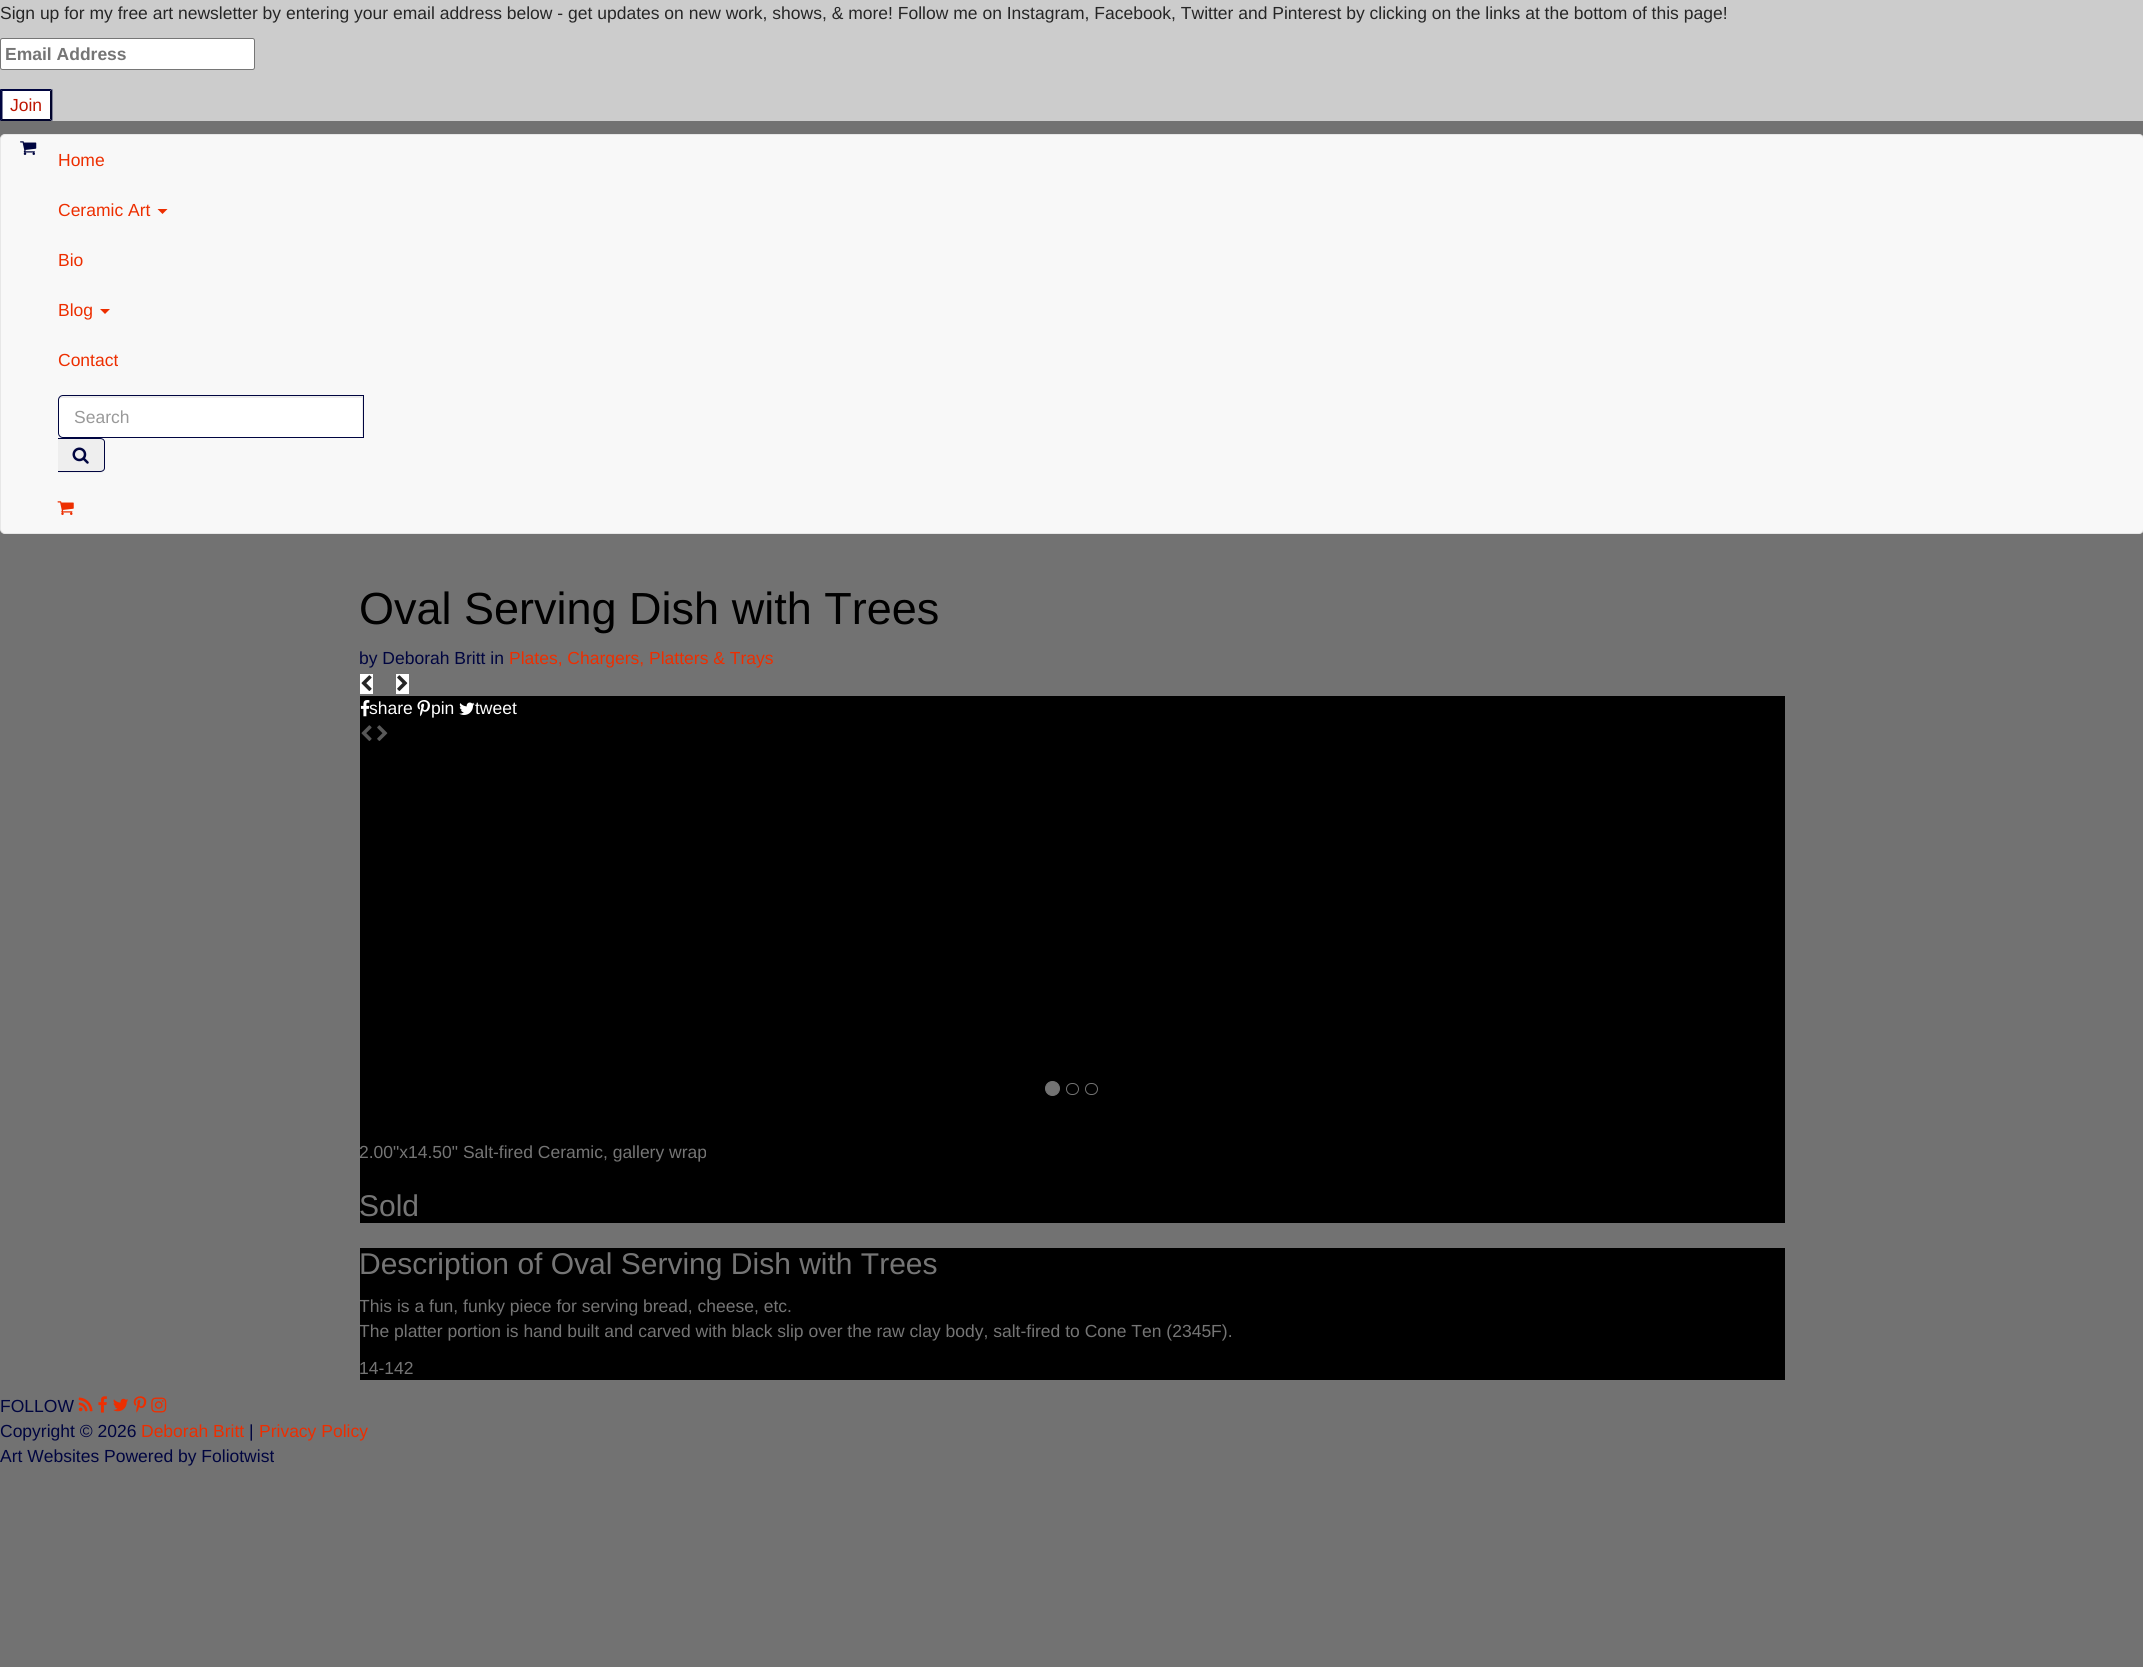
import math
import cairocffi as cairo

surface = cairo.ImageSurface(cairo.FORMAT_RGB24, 2143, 1667)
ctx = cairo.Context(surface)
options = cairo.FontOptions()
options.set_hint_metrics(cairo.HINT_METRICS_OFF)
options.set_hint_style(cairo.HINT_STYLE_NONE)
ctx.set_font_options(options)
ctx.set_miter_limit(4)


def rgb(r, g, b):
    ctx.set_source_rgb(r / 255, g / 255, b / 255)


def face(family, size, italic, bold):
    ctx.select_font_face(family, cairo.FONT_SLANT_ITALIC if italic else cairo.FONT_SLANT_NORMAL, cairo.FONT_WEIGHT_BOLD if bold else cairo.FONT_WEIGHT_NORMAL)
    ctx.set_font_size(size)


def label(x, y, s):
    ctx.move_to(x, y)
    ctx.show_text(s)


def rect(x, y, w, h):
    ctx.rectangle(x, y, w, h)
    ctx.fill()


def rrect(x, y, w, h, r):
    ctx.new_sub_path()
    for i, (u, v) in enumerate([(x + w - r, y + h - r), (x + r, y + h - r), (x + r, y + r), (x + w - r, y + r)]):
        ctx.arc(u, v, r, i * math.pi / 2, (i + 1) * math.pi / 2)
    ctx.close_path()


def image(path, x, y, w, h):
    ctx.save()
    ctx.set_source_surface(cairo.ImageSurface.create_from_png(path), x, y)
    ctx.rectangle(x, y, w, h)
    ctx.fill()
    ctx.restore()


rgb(114, 114, 114)
ctx.paint()
rgb(204, 204, 204)
rect(0, 0, 2143, 121)
face('Liberation Sans', 17.5, 0, 0)
rgb(38, 38, 38)
label(0, 19, 'Sign up for my free art newsletter by entering your email address below - get updates on new work, shows, & more! Follow me on Instagram, Facebook, Twitter and Pinterest by clicking on the links at the bottom of this page!')
rgb(255, 255, 255)
rrect(0.5, 38.5, 254, 31, 2)
ctx.fill_preserve()
rgb(118, 118, 118)
ctx.set_line_width(1)
ctx.stroke()
face('Liberation Sans', 17.5, 0, 1)
rgb(117, 117, 117)
label(5, 60, 'Email Address')
rgb(255, 255, 255)
rect(0, 89, 53, 32)
rgb(0, 5, 64)
ctx.new_path()
ctx.move_to(0, 89)
ctx.line_to(52, 89)
ctx.line_to(50, 91)
ctx.line_to(2, 91)
ctx.close_path()
ctx.fill()
rgb(0, 3, 43)
ctx.new_path()
ctx.move_to(52.5, 89)
ctx.line_to(52.5, 121)
ctx.line_to(50, 119)
ctx.line_to(50, 91)
ctx.close_path()
ctx.fill()
ctx.new_path()
ctx.move_to(52, 121)
ctx.line_to(0, 121)
ctx.line_to(2, 119)
ctx.line_to(50, 119)
ctx.close_path()
ctx.fill()
rgb(0, 5, 64)
ctx.new_path()
ctx.move_to(0, 121)
ctx.line_to(0, 89)
ctx.line_to(2.5, 91)
ctx.line_to(2.5, 119)
ctx.close_path()
ctx.fill()
face('Liberation Sans', 17.5, 0, 0)
rgb(189, 21, 2)
label(10, 111, 'Join')
rgb(248, 248, 248)
rrect(0.5, 134.5, 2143, 399, 4.5)
ctx.fill_preserve()
rgb(231, 231, 231)
ctx.stroke()
image('image0.png', 20, 141, 17, 14)
rgb(237, 46, 0)
label(58, 166, 'Home')
label(58, 216, 'Ceramic Art')
ctx.new_path()
ctx.move_to(157.5, 209)
ctx.line_to(167.5, 209)
ctx.line_to(162.5, 214)
ctx.close_path()
ctx.fill()
label(58, 266, 'Bio')
label(58, 316, 'Blog')
ctx.new_path()
ctx.move_to(100, 309)
ctx.line_to(110, 309)
ctx.line_to(105, 314)
ctx.close_path()
ctx.fill()
label(58, 366, 'Contact')
rgb(255, 255, 255)
ctx.new_path()
ctx.move_to(63, 395)
ctx.line_to(364, 395)
ctx.line_to(364, 438)
ctx.line_to(63, 438)
ctx.curve_to(60, 438, 58, 436, 58, 433)
ctx.line_to(58, 400)
ctx.curve_to(58, 397, 60, 395, 63, 395)
ctx.close_path()
ctx.fill()
rgb(236, 236, 236)
ctx.new_path()
ctx.move_to(62, 398)
ctx.line_to(362, 398)
ctx.line_to(362, 436)
ctx.line_to(363, 436)
ctx.line_to(363, 396)
ctx.line_to(63, 396)
ctx.curve_to(61, 396, 59, 398, 59, 400)
ctx.line_to(59, 401)
ctx.curve_to(59, 399, 60, 398, 62, 398)
ctx.close_path()
ctx.fill()
ctx.new_path()
ctx.move_to(63, 395.5)
ctx.line_to(363.5, 395.5)
ctx.line_to(363.5, 437.5)
ctx.line_to(63, 437.5)
ctx.curve_to(60.5, 437.5, 58.5, 435.5, 58.5, 433)
ctx.line_to(58.5, 400)
ctx.curve_to(58.5, 397.5, 60.5, 395.5, 63, 395.5)
ctx.close_path()
rgb(0, 5, 64)
ctx.stroke()
rgb(153, 153, 153)
label(74, 423, 'Search')
rgb(238, 238, 238)
ctx.new_path()
ctx.move_to(58, 438)
ctx.line_to(100, 438)
ctx.curve_to(103, 438, 105, 440, 105, 443)
ctx.line_to(105, 468)
ctx.curve_to(105, 471, 103, 473, 100, 473)
ctx.line_to(58, 473)
ctx.close_path()
ctx.fill()
rgb(0, 5, 64)
ctx.set_fill_rule(cairo.FILL_RULE_EVEN_ODD)
ctx.new_path()
ctx.move_to(58, 438)
ctx.line_to(100, 438)
ctx.curve_to(103, 438, 105, 440, 105, 442)
ctx.line_to(105, 468)
ctx.curve_to(105, 470, 103, 472, 100, 472)
ctx.line_to(58, 472)
ctx.close_path()
ctx.move_to(58, 439)
ctx.line_to(100, 439)
ctx.curve_to(102, 439, 104, 440, 104, 442)
ctx.line_to(104, 468)
ctx.curve_to(104, 470, 102, 471, 100, 471)
ctx.line_to(58, 471)
ctx.close_path()
ctx.fill()
image('image1.png', 72, 447, 17, 17)
image('image2.png', 57, 501, 17, 14)
face('Liberation Sans', 45, 0, 0)
rgb(0, 0, 0)
label(359, 624, 'Oval Serving Dish with Trees')
face('Liberation Sans', 17.5, 0, 0)
rgb(0, 5, 64)
label(359, 664, 'by Deborah Britt in')
rgb(237, 46, 0)
label(509, 664, 'Plates, Chargers, Platters & Trays')
rgb(255, 255, 255)
rect(360, 674, 13, 20)
image('image3.png', 361, 675, 11, 16)
rect(396, 674, 13, 20)
image('image4.png', 397, 675, 11, 16)
rgb(0, 0, 0)
rect(360, 696, 1425, 527)
image('image5.png', 360, 700, 10, 17)
rgb(255, 255, 255)
label(369, 714, 'share')
image('image6.png', 417, 700, 13, 17)
label(431, 714, 'pin')
image('image7.png', 459, 702, 16, 13)
label(475, 714, 'tweet')
image('image8.png', 361, 725, 11, 16)
image('image9.png', 377, 725, 11, 16)
rgb(115, 115, 115)
ctx.arc(1052.5, 1088.5, 7, 0, 2 * math.pi)
ctx.fill_preserve()
ctx.stroke()
rrect(1066.5, 1083.5, 12, 11, 5.5)
ctx.stroke()
rrect(1085.5, 1083.5, 12, 11, 5.5)
ctx.stroke()
gradient = cairo.LinearGradient(360, 931, 574, 931)
gradient.add_color_stop_rgba(0, 0, 0, 0, 0.25)
gradient.add_color_stop_rgba(1, 0, 0, 0, 0)
ctx.set_source(gradient)
rect(361, 725, 26, 16)
rgb(117, 117, 117)
label(359, 1158, '2.00"x14.50" Salt-fired Ceramic, gallery wrap')
face('Liberation Sans', 30, 0, 0)
label(359, 1216, 'Sold')
rgb(0, 0, 0)
rect(360, 1248, 1425, 132)
rgb(117, 117, 117)
label(359, 1274, 'Description of Oval Serving Dish with Trees')
face('Liberation Sans', 17.5, 0, 0)
label(359, 1312, 'This is a fun, funky piece for serving bread, cheese, etc.')
label(359, 1337, 'The platter portion is hand built and carved with black slip over the raw clay body, salt-fired to Cone Ten (2345F).')
label(359, 1374, '14-142')
rgb(0, 5, 64)
label(0, 1412, 'FOLLOW')
image('image10.png', 78, 1397, 15, 15)
image('image11.png', 98, 1396, 9, 17)
image('image12.png', 113, 1398, 16, 14)
image('image13.png', 133, 1396, 14, 17)
image('image14.png', 151, 1397, 16, 16)
label(0, 1437, 'Copyright © 2026')
rgb(237, 46, 0)
label(141, 1437, 'Deborah Britt')
rgb(0, 5, 64)
label(249, 1437, '|')
rgb(237, 46, 0)
label(259, 1437, 'Privacy Policy')
rgb(0, 5, 64)
label(0, 1462, 'Art Websites Powered by Foliotwist')
surface.write_to_png('render.png')
